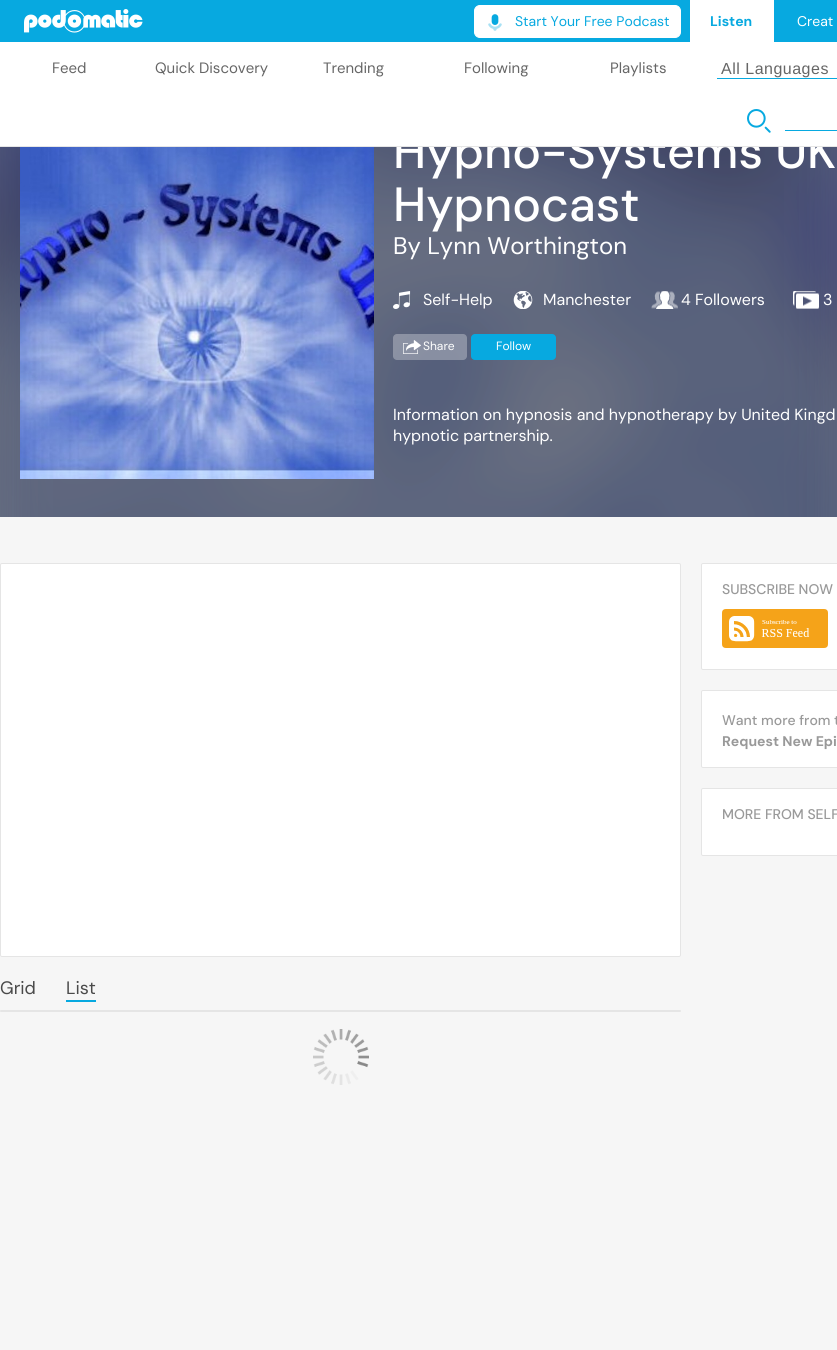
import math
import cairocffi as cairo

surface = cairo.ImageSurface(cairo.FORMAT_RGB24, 837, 1350)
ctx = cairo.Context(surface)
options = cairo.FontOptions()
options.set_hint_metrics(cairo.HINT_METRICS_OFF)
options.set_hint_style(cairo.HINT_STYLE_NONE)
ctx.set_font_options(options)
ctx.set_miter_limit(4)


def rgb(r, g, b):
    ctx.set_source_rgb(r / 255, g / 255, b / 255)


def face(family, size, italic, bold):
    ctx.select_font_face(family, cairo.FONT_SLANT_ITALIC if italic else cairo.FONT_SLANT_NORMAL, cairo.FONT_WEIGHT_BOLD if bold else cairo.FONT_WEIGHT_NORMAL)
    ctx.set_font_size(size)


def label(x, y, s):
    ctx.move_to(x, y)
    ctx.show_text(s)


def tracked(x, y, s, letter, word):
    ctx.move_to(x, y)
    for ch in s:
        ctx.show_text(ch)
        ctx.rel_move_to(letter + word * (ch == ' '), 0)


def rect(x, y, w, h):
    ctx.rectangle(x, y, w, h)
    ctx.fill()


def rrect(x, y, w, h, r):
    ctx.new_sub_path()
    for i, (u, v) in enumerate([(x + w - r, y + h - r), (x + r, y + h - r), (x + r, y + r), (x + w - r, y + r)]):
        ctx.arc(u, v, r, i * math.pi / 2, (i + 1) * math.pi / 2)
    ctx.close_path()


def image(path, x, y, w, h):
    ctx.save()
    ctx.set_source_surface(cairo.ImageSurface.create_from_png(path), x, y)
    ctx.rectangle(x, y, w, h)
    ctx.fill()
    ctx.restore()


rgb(246, 246, 246)
ctx.paint()
rgb(135, 135, 135)
rect(0, 147, 837, 370)
rgb(7, 169, 224)
rect(0, 0, 837, 42)
image('image0.png', 24, 9, 119, 24)
rgb(255, 255, 255)
rrect(474.5, 5.5, 206, 32, 5.5)
ctx.fill_preserve()
ctx.set_line_width(1)
ctx.stroke()
image('image1.png', 488, 14, 14, 17)
face('DM Sans', 14, 0, 0)
rgb(7, 169, 224)
label(515, 26, 'Start Your Free Podcast')
rgb(255, 255, 255)
rect(690, 0, 84, 42)
face('DM Sans', 14, 0, 1)
rgb(7, 169, 224)
label(710, 26, 'Listen')
face('DM Sans', 14, 0, 0)
rgb(255, 255, 255)
label(797, 26, 'Creat')
rect(0, 42, 837, 104)
image('image9.png', 0, 147, 837, 370)
face('DM Sans Medium', 48, 0, 0)
label(393, 168, 'Hypno-Systems UK')
rgb(230, 230, 230)
rect(0, 146, 837, 1)
face('DM Sans', 15, 0, 0)
rgb(102, 102, 102)
label(52, 73, 'Feed')
label(155, 73, 'Quick Discovery')
label(323, 73, 'Trending')
label(464, 73, 'Following')
label(610, 73, 'Playlists')
rgb(7, 169, 224)
rect(717, 78, 120, 1)
face('Liberation Sans', 16, 0, 0)
rgb(102, 102, 102)
tracked(721, 74, 'All Languages', 0.5, 0)
image('image2.png', 747, 109, 24, 24)
rgb(7, 169, 224)
rect(785, 130, 52, 1)
image('image3.png', 20, 147, 354, 332)
face('DM Sans Medium', 48, 0, 0)
rgb(255, 255, 255)
label(393, 221, 'Hypnocast')
face('DM Sans', 24, 0, 0)
label(393, 254, 'By Lynn Worthington')
image('image4.png', 393, 291, 18, 18)
face('DM Sans', 16, 0, 0)
label(423, 305, 'Self-Help')
image('image5.png', 513, 291, 20, 18)
label(543, 305, 'Manchester')
image('image6.png', 651, 291, 27, 18)
label(681, 305, '4 Followers')
image('image7.png', 793, 291, 26, 18)
label(823, 305, '3')
ctx.set_source_rgba(1, 1, 1, 0.3)
rrect(393, 334, 74, 26, 4)
ctx.fill()
image('image8.png', 403, 340, 18, 14)
face('DM Sans', 12, 0, 0)
rgb(255, 255, 255)
label(423, 350, 'Share')
rgb(7, 169, 224)
rrect(471, 334, 85, 26, 4)
ctx.fill()
rgb(255, 255, 255)
label(496, 350, 'Follow')
face('DM Sans', 16, 0, 0)
label(393, 420, 'Information on hypnosis and hypnotherapy by United Kingd')
label(393, 441, 'hypnotic partnership.')
rrect(701.5, 563.5, 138, 106, 1.5)
ctx.fill_preserve()
rgb(229, 229, 229)
ctx.stroke()
face('DM Sans Medium', 14, 0, 0)
rgb(153, 153, 153)
label(722, 594, 'SUBSCRIBE NOW')
image('image10.png', 722, 609, 106, 39)
rgb(255, 255, 255)
rrect(701.5, 690.5, 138, 77, 1.5)
ctx.fill_preserve()
rgb(229, 229, 229)
ctx.stroke()
rgb(153, 153, 153)
label(722, 725, 'Want more from t')
face('DM Sans', 14, 0, 1)
label(722, 746, 'Request New Epi')
rgb(255, 255, 255)
rrect(701.5, 788.5, 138, 67, 1.5)
ctx.fill_preserve()
rgb(229, 229, 229)
ctx.stroke()
face('DM Sans Medium', 14, 0, 0)
rgb(153, 153, 153)
label(722, 819, 'MORE FROM SELF')
rgb(255, 255, 255)
rrect(0.5, 563.5, 680, 393, 1.5)
ctx.fill_preserve()
rgb(229, 229, 229)
ctx.stroke()
face('DM Sans', 18, 0, 0)
rgb(74, 74, 74)
label(0, 994, 'Grid')
label(66, 994, 'List')
rgb(7, 169, 224)
rect(66, 1000, 30, 2)
rgb(229, 229, 229)
rrect(0, 1010, 681, 2, 1)
ctx.fill()
image('image11.png', 313, 1029, 56, 56)
surface.write_to_png('render.png')
